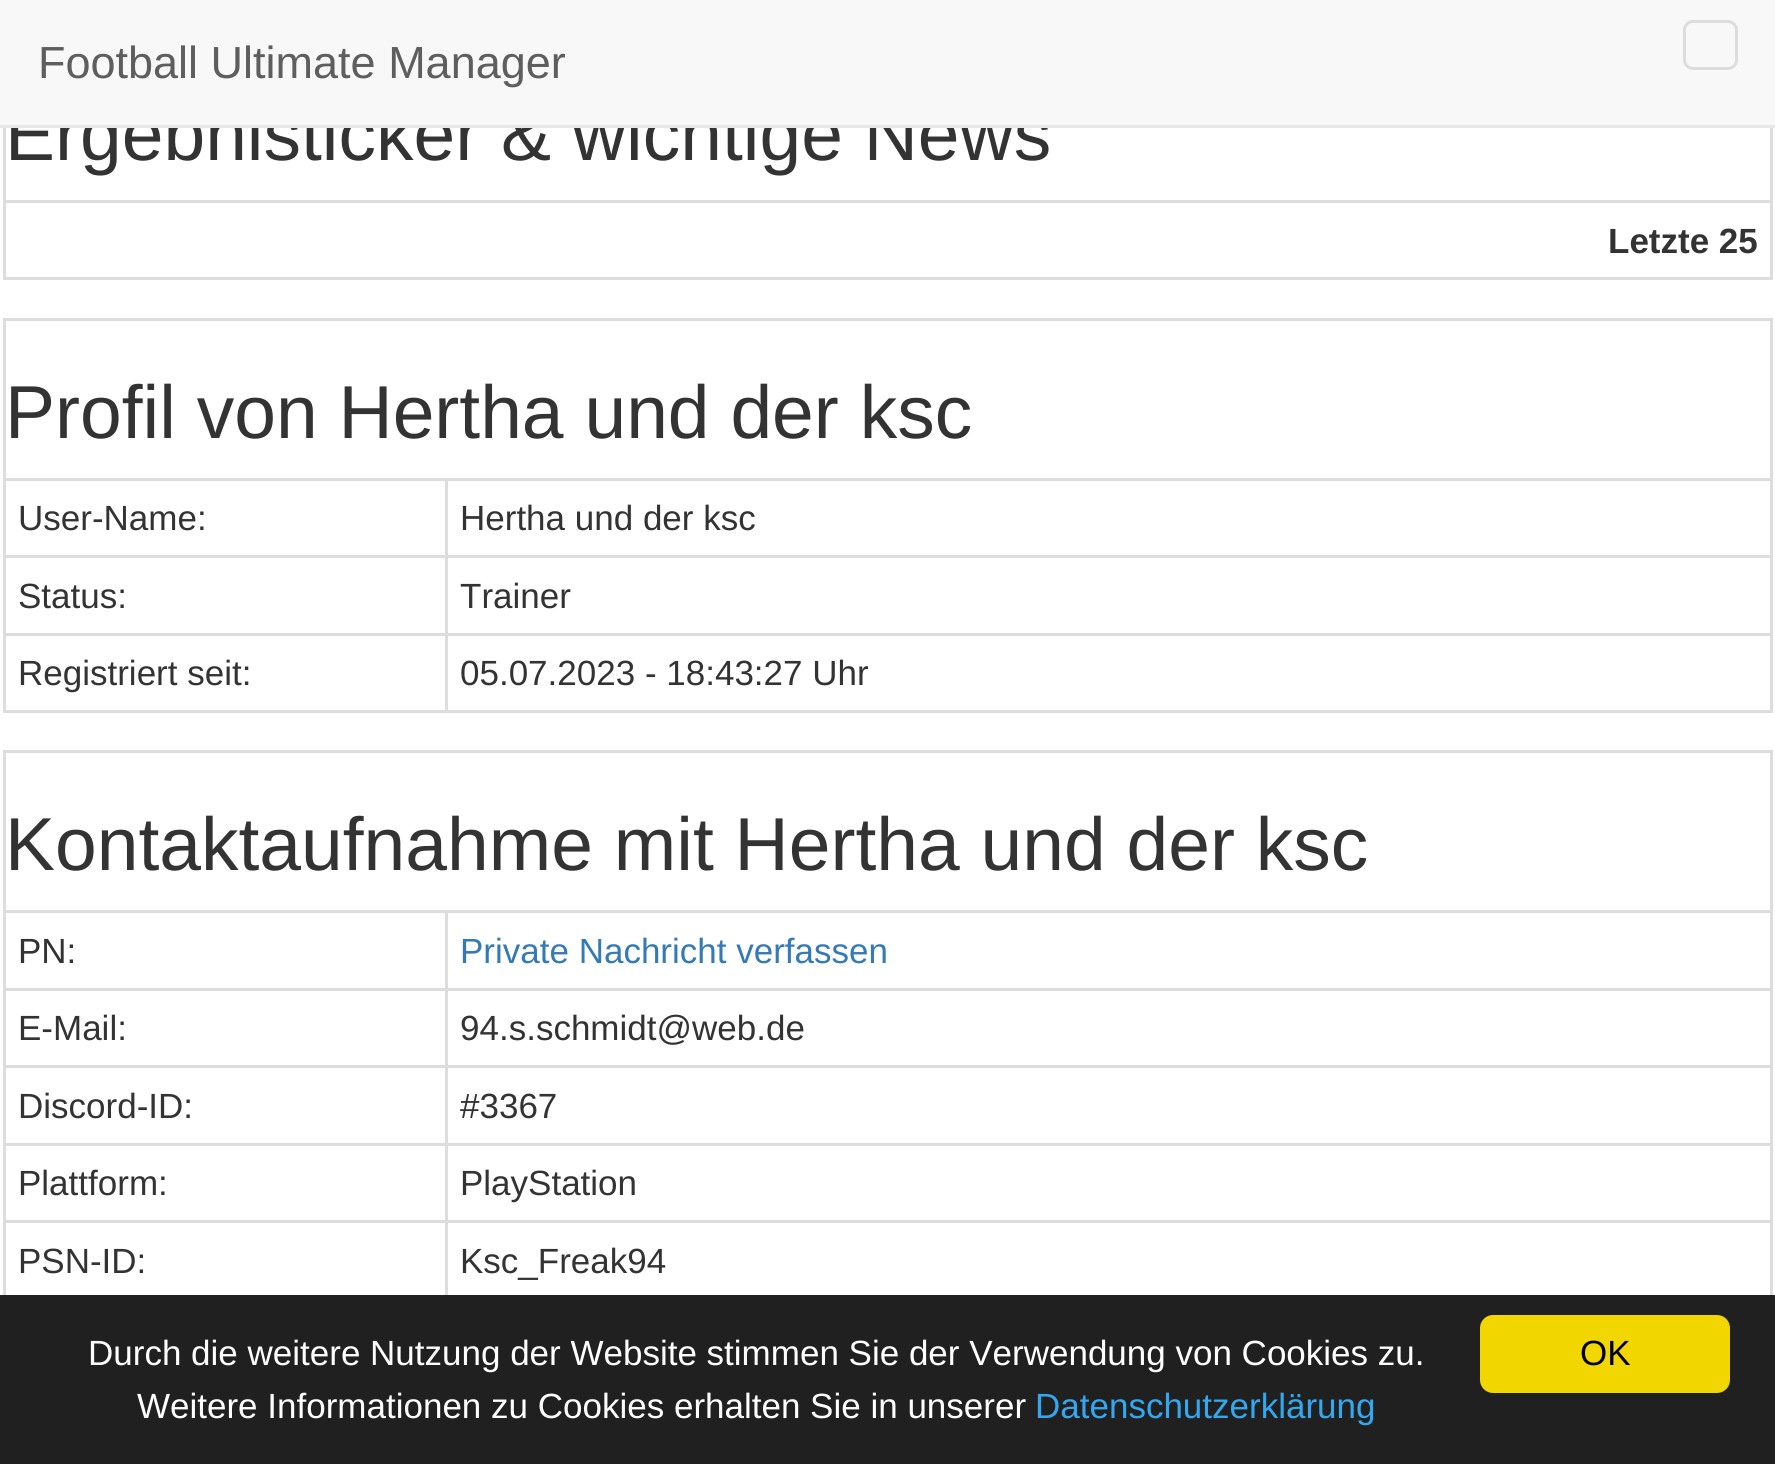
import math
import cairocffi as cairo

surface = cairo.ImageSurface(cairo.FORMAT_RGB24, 1775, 1464)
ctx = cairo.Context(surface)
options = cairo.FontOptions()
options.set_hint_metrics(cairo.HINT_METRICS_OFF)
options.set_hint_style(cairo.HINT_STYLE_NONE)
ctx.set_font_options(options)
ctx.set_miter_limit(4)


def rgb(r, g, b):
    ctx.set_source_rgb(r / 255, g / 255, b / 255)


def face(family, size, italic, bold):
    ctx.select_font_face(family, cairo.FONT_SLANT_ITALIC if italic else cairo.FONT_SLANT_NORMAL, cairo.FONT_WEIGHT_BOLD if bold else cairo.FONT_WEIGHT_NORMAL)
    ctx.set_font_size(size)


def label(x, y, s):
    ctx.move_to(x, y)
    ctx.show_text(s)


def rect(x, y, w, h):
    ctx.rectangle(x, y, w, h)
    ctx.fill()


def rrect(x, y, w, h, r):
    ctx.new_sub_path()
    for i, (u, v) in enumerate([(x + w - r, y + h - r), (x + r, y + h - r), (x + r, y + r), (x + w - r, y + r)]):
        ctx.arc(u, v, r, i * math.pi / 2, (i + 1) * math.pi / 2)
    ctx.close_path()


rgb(255, 255, 255)
ctx.paint()
ctx.rectangle(4.5, 41.5, 1767, 237)
rgb(221, 221, 221)
ctx.set_line_width(3)
ctx.stroke()
face('Liberation Sans', 75, 0, 0)
rgb(51, 51, 51)
label(5, 160, 'Ergebnisticker & wichtige News')
rgb(248, 248, 248)
rect(0, 0, 1775, 125)
rgb(231, 231, 231)
rect(0, 125, 1775, 3)
face('Liberation Sans', 45, 0, 0)
rgb(94, 94, 94)
label(38, 78, 'Football Ultimate Manager')
rrect(1684.5, 21.5, 52, 47, 8.5)
rgb(221, 221, 221)
ctx.stroke()
rect(5, 200, 1765, 3)
face('Liberation Sans', 35, 0, 1)
rgb(51, 51, 51)
label(1608, 253, 'Letzte 25')
ctx.rectangle(4.5, 319.5, 1767, 392)
rgb(221, 221, 221)
ctx.stroke()
face('Liberation Sans', 75, 0, 0)
rgb(51, 51, 51)
label(5, 438, 'Profil von Hertha und der ksc')
rgb(221, 221, 221)
rect(445, 478, 1325, 3)
rect(445, 555, 1325, 3)
rect(445, 633, 1325, 3)
rect(445, 633, 3, 77)
rect(5, 633, 443, 3)
rect(445, 555, 3, 80)
rect(5, 555, 443, 3)
rect(445, 478, 3, 80)
rect(5, 478, 443, 3)
face('Liberation Sans', 35, 0, 0)
rgb(51, 51, 51)
label(18, 530, 'User-Name:')
label(460, 530, 'Hertha und der ksc')
label(18, 608, 'Status:')
label(460, 608, 'Trainer')
label(18, 685, 'Registriert seit:')
label(460, 685, '05.07.2023 - 18:43:27 Uhr')
ctx.rectangle(4.5, 751.5, 1767, 625)
rgb(221, 221, 221)
ctx.stroke()
face('Liberation Sans', 75, 0, 0)
rgb(51, 51, 51)
label(5, 870, 'Kontaktaufnahme mit Hertha und der ksc')
rgb(221, 221, 221)
rect(445, 910, 1325, 3)
rect(445, 988, 1325, 3)
rect(445, 1065, 1325, 3)
rect(445, 1143, 1325, 3)
rect(445, 1220, 1325, 3)
rect(445, 1220, 3, 80)
rect(5, 1220, 443, 3)
rect(445, 1143, 3, 80)
rect(5, 1143, 443, 3)
rect(445, 1065, 3, 80)
rect(5, 1065, 443, 3)
rect(445, 988, 3, 80)
rect(5, 988, 443, 3)
rect(445, 910, 3, 80)
rect(5, 910, 443, 3)
face('Liberation Sans', 35, 0, 0)
rgb(51, 51, 51)
label(18, 963, 'PN:')
rgb(51, 122, 183)
label(460, 963, 'Private Nachricht verfassen')
rgb(51, 51, 51)
label(18, 1040, 'E-Mail:')
label(460, 1040, '94.s.schmidt@web.de')
label(18, 1118, 'Discord-ID:')
label(460, 1118, '#3367')
label(18, 1195, 'Plattform:')
label(460, 1195, 'PlayStation')
label(18, 1273, 'PSN-ID:')
label(460, 1273, 'Ksc_Freak94')
rgb(32, 32, 32)
rect(0, 1295, 1775, 169)
rgb(255, 255, 255)
label(88, 1365, 'Durch die weitere Nutzung der Website stimmen Sie der Verwendung von Cookies zu.')
label(137, 1418, 'Weitere Informationen zu Cookies erhalten Sie in unserer')
rgb(49, 168, 240)
label(1035, 1418, 'Datenschutzerklärung')
rgb(241, 214, 0)
rrect(1480, 1315, 250, 78, 13)
ctx.fill()
rgb(0, 0, 0)
label(1580, 1365, 'OK')
surface.write_to_png('render.png')
